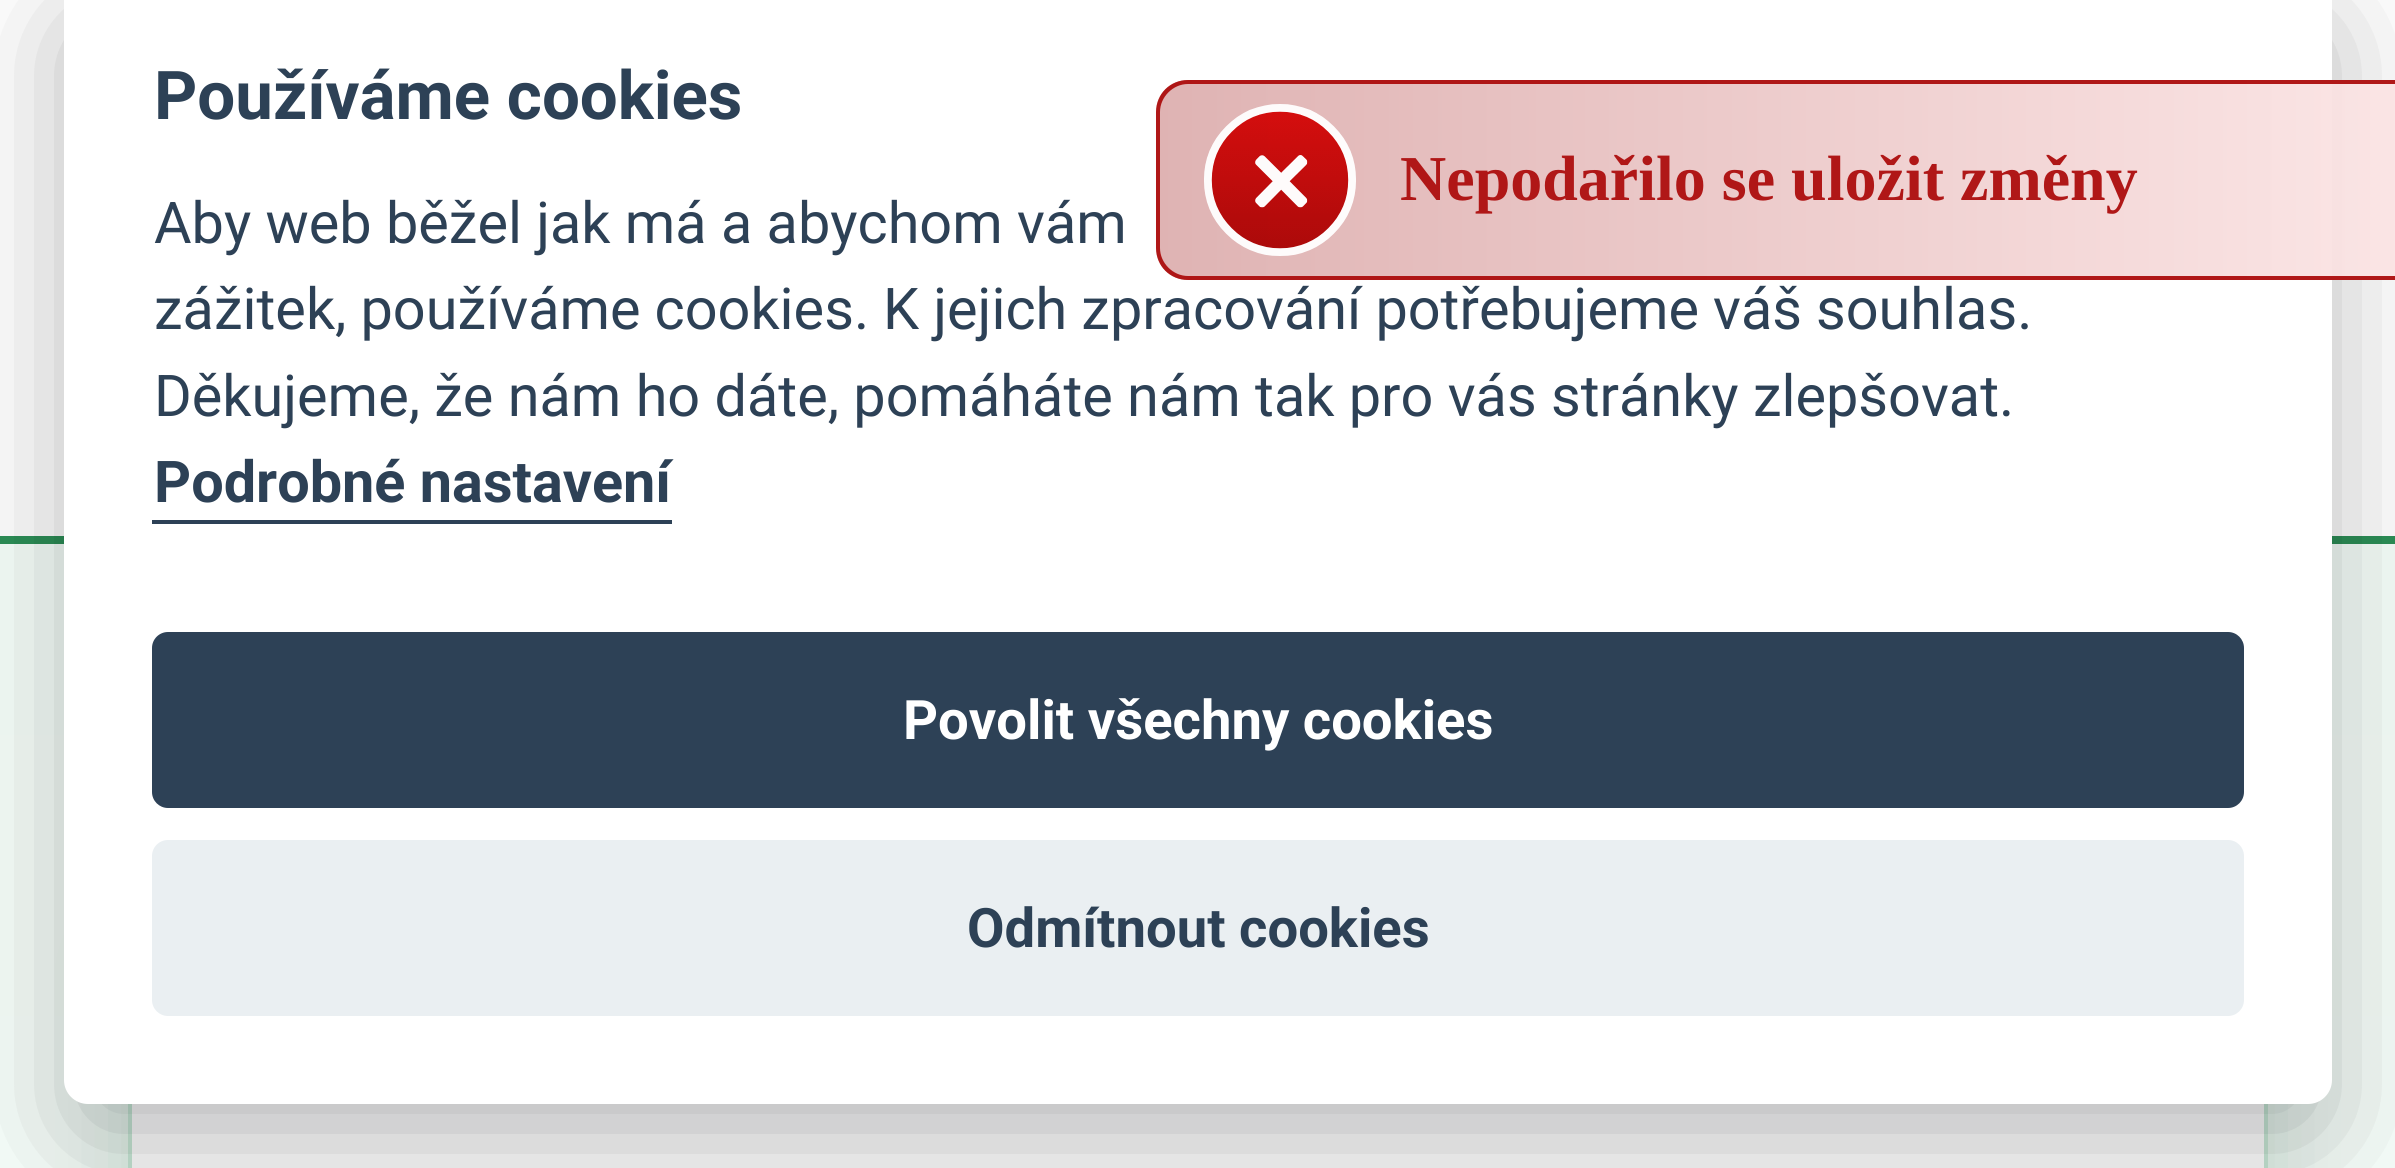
import math
import cairocffi as cairo

surface = cairo.ImageSurface(cairo.FORMAT_RGB24, 2395, 1168)
ctx = cairo.Context(surface)
options = cairo.FontOptions()
options.set_hint_metrics(cairo.HINT_METRICS_OFF)
options.set_hint_style(cairo.HINT_STYLE_NONE)
ctx.set_font_options(options)
ctx.set_miter_limit(4)


def rgb(r, g, b):
    ctx.set_source_rgb(r / 255, g / 255, b / 255)


def face(family, size, italic, bold):
    ctx.select_font_face(family, cairo.FONT_SLANT_ITALIC if italic else cairo.FONT_SLANT_NORMAL, cairo.FONT_WEIGHT_BOLD if bold else cairo.FONT_WEIGHT_NORMAL)
    ctx.set_font_size(size)


def label(x, y, s):
    ctx.move_to(x, y)
    ctx.show_text(s)


def tracked(x, y, s, letter, word):
    ctx.move_to(x, y)
    for ch in s:
        ctx.show_text(ch)
        ctx.rel_move_to(letter + word * (ch == ' '), 0)


def rect(x, y, w, h):
    ctx.rectangle(x, y, w, h)
    ctx.fill()


def rrect(x, y, w, h, r):
    ctx.new_sub_path()
    for i, (u, v) in enumerate([(x + w - r, y + h - r), (x + r, y + h - r), (x + r, y + r), (x + w - r, y + r)]):
        ctx.arc(u, v, r, i * math.pi / 2, (i + 1) * math.pi / 2)
    ctx.close_path()


def soft_shadow(x, y, w, h, r, blur, alpha):
    ctx.push_group_with_content(cairo.CONTENT_ALPHA)
    ctx.set_operator(cairo.OPERATOR_SOURCE)
    for i in range(15, -16, -2):
        e = blur * i / 6
        if min(w, h) + 2 * e > 0:
            ctx.set_source_rgba(0, 0, 0, alpha * math.erfc((i - 1) / 8.5) / 2)
            rrect(x - e, y - e, w + 2 * e, h + 2 * e, max(0, min(r + e + blur * .6, min(w, h) / 2 + e)))
            ctx.fill()
    ctx.mask(ctx.pop_group())


def image(path, x, y, w, h):
    ctx.save()
    ctx.set_source_surface(cairo.ImageSurface.create_from_png(path), x, y)
    ctx.rectangle(x, y, w, h)
    ctx.fill()
    ctx.restore()


rgb(255, 255, 255)
ctx.paint()
rgb(44, 143, 87)
rect(0, 536, 2395, 8)
gradient = cairo.LinearGradient(1198, 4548, 1198, 544)
gradient.add_color_stop_rgba(0, 1, 1, 1, 1)
gradient.add_color_stop_rgba(1, 0.965, 1, 0.98, 1)
ctx.set_source(gradient)
rect(0, 544, 2395, 624)
rgb(44, 143, 87)
soft_shadow(128, 952, 2140, 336, 0, 40, 0.15)
rgb(255, 255, 255)
rect(132, 1104, 2132, 64)
ctx.rectangle(130, 946, 2136, 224)
rgb(200, 233, 215)
ctx.set_line_width(4)
ctx.stroke()
rgb(2, 2, 3)
soft_shadow(64, 16, 2268, 1128, 24, 60, 0.28)
rgb(255, 255, 255)
rrect(64, -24, 2268, 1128, 24)
ctx.fill()
face('Roboto', 67.25, 0, 1)
rgb(45, 65, 86)
label(154, 119, 'Používáme cookies')
face('Roboto', 57.6, 0, 0)
label(154, 243, 'Aby web běžel jak má a abychom vám')
tracked(154, 329, 'zážitek, používáme cookies. K jejich zpracování potřebujeme váš souhlas.', 0, -0.25)
label(154, 416, 'Děkujeme, že nám ho dáte, pomáháte nám tak pro vás stránky zlepšovat.')
face('Roboto', 57.6, 0, 1)
label(154, 502, 'Podrobné nastavení')
rect(152, 520, 520, 4)
rrect(152, 632, 2092, 176, 16)
ctx.fill()
face('Roboto', 54.4, 0, 1)
rgb(255, 255, 255)
label(903, 739, 'Povolit všechny cookies')
rgb(234, 239, 242)
rrect(152, 840, 2092, 176, 16)
ctx.fill()
rgb(45, 65, 86)
label(967, 947, 'Odmítnout cookies')
ctx.save()
ctx.new_path()
ctx.move_to(1188, 80)
ctx.line_to(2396, 80)
ctx.line_to(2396, 280)
ctx.line_to(1188, 280)
ctx.curve_to(1170.5, 280, 1156, 265.5, 1156, 248)
ctx.line_to(1156, 112)
ctx.curve_to(1156, 94.5, 1170.5, 80, 1188, 80)
ctx.close_path()
ctx.clip()
gradient = cairo.LinearGradient(-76, 180, 1160, 180)
gradient.add_color_stop_rgba(0, 0.867, 0.686, 0.686, 0.95)
gradient.add_color_stop_rgba(1, 0.984, 0.894, 0.894, 0.95)
ctx.set_source(gradient)
rect(1156, 96, 4, 168)
gradient = cairo.LinearGradient(1160, 180, 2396, 180)
gradient.add_color_stop_rgba(0, 0.867, 0.686, 0.686, 0.95)
gradient.add_color_stop_rgba(1, 0.984, 0.894, 0.894, 0.95)
ctx.set_source(gradient)
rect(1160, 80, 1235, 200)
ctx.restore()
ctx.set_source_rgba(0.678, 0.055, 0.055, 0.95)
ctx.set_fill_rule(cairo.FILL_RULE_EVEN_ODD)
ctx.new_path()
ctx.move_to(1188, 80)
ctx.line_to(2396, 80)
ctx.line_to(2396, 280)
ctx.line_to(1188, 280)
ctx.curve_to(1170, 280, 1156, 266, 1156, 248)
ctx.line_to(1156, 112)
ctx.curve_to(1156, 94, 1170, 80, 1188, 80)
ctx.close_path()
ctx.move_to(1188, 84)
ctx.line_to(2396, 84)
ctx.line_to(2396, 276)
ctx.line_to(1188, 276)
ctx.curve_to(1173, 276, 1160, 263, 1160, 248)
ctx.line_to(1160, 112)
ctx.curve_to(1160, 97, 1173, 84, 1188, 84)
ctx.close_path()
ctx.fill()
image('image0.png', 1204, 104, 152, 152)
face('Liberation Serif', 64, 0, 1)
rgb(176, 23, 23)
label(1400, 200, 'Nepodařilo se uložit změny')
surface.write_to_png('render.png')
